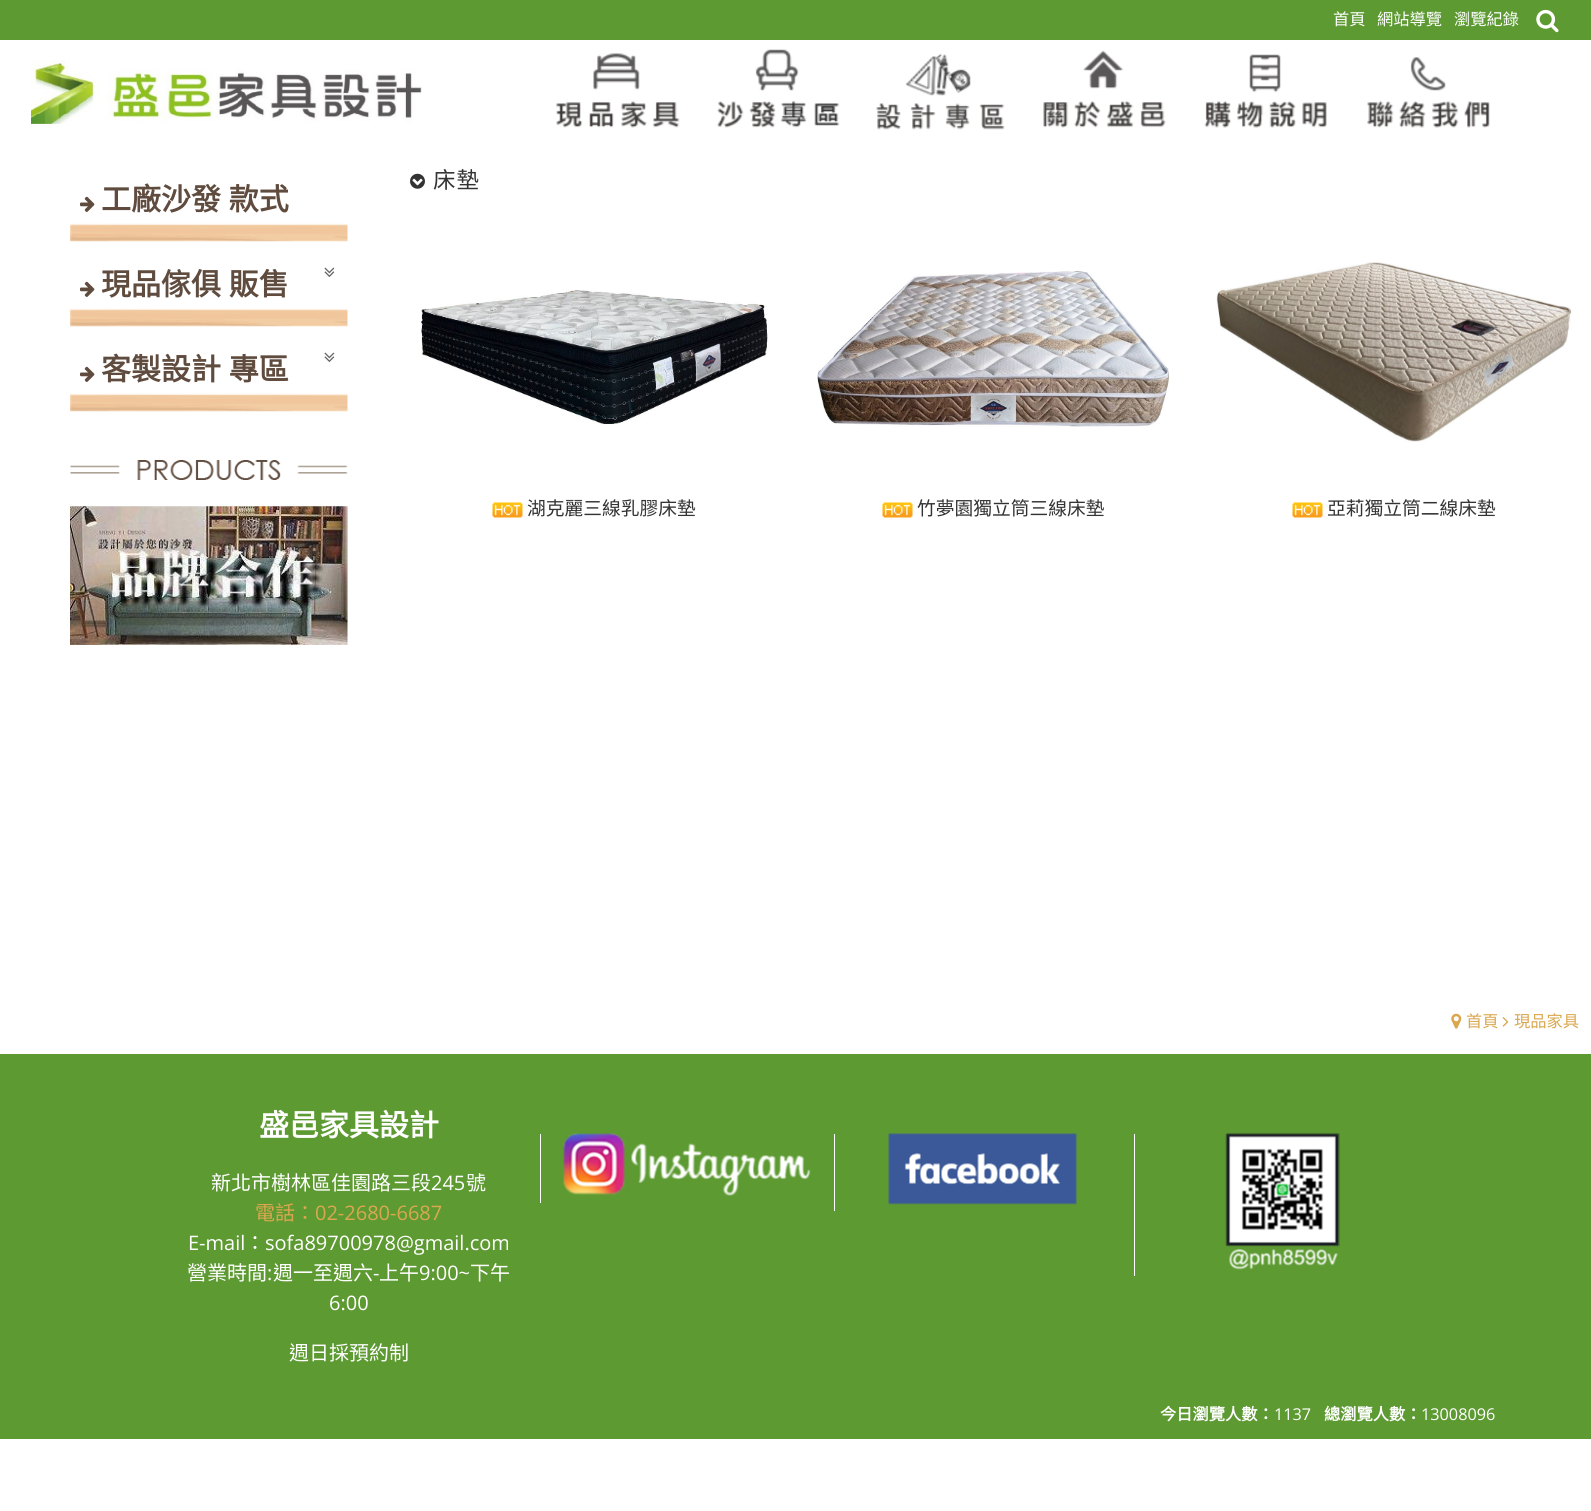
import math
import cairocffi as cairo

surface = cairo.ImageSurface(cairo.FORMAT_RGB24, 1591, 1511)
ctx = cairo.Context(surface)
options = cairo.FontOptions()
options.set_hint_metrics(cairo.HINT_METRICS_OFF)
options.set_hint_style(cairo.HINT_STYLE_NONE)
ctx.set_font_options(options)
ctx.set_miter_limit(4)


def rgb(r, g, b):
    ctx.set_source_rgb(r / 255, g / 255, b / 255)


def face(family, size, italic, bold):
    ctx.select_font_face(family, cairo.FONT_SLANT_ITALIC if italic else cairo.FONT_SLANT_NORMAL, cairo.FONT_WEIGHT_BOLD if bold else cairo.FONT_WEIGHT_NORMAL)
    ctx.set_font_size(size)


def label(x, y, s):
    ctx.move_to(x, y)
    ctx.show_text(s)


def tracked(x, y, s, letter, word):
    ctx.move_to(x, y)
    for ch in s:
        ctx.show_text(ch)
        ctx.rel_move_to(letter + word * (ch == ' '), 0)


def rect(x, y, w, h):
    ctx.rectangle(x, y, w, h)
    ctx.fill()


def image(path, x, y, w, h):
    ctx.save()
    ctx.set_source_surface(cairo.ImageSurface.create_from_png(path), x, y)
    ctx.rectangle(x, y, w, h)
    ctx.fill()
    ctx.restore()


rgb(255, 255, 255)
ctx.paint()
rgb(93, 154, 50)
rect(0, 0, 1591, 40)
face('Noto Sans CJK TC', 16.25, 0, 0)
rgb(255, 255, 255)
label(1333, 25, '首頁')
label(1377, 25, '網站導覽')
label(1454, 25, '瀏覽紀錄')
image('image0.png', 1536, 9, 23, 24)
image('image1.png', 31, 60, 391, 64)
image('image2.png', 556, 53, 124, 75)
image('image3.png', 717, 49, 123, 79)
image('image4.png', 876, 53, 129, 77)
image('image5.png', 1043, 50, 123, 78)
image('image6.png', 1204, 54, 123, 74)
image('image7.png', 1367, 57, 123, 71)
image('image8.png', 70, 223, 278, 19)
image('image9.png', 80, 196, 15, 16)
face('Noto Sans CJK TC', 30, 0, 1)
rgb(96, 76, 63)
tracked(101, 210, '工廠沙發 款式', 0, 1)
image('image8.png', 70, 308, 278, 19)
image('image9.png', 80, 281, 15, 16)
tracked(101, 295, '現品傢俱 販售', 0, 1)
image('image10.png', 324, 267, 11, 10)
image('image8.png', 70, 393, 278, 19)
image('image9.png', 80, 366, 15, 16)
tracked(101, 380, '客製設計 專區', 0, 1)
image('image10.png', 324, 352, 11, 10)
image('image11.png', 70, 460, 278, 20)
image('image12.png', 70, 506, 278, 139)
image('image13.png', 410, 173, 15, 16)
face('Noto Sans CJK TC', 22.5, 0, 0)
rgb(51, 51, 51)
tracked(433, 188, '床墊', 1, 0)
image('image14.png', 421, 290, 348, 135)
image('image15.png', 492, 502, 31, 16)
face('Noto Sans CJK TC', 18.75, 0, 0)
label(527, 515, '湖克麗三線乳膠床墊')
image('image16.png', 817, 271, 352, 156)
image('image17.png', 882, 502, 31, 16)
label(917, 515, '竹夢園獨立筒三線床墊')
image('image18.png', 1216, 262, 356, 180)
image('image17.png', 1292, 502, 31, 16)
label(1327, 515, '亞莉獨立筒二線床墊')
image('image19.png', 1451, 1013, 11, 16)
face('Noto Sans CJK TC', 16.25, 0, 0)
rgb(218, 167, 79)
label(1466, 1027, '首頁')
image('image20.png', 1502, 1017, 7, 10)
label(1514, 1027, '現品家具')
rgb(93, 154, 50)
rect(0, 1054, 1591, 385)
face('Noto Sans CJK TC', 30, 0, 1)
rgb(255, 255, 255)
label(259, 1136, '盛邑家具設計')
face('Noto Sans CJK TC', 20, 0, 0)
label(211, 1190, '新北市樹林區佳園路三段')
face('Open Sans', 20, 0, 0)
label(431, 1190, '245')
face('Noto Sans CJK TC', 20, 0, 0)
label(466, 1190, '號')
rgb(218, 167, 79)
label(255, 1220, '電話：')
face('Open Sans', 20, 0, 0)
label(315, 1220, '02-2680-6687')
rgb(255, 255, 255)
label(188, 1250, 'E-mail')
face('Noto Sans CJK TC', 20, 0, 0)
label(245, 1250, '：')
face('Open Sans', 20, 0, 0)
label(265, 1250, 'sofa89700978@gmail.com')
face('Noto Sans CJK TC', 20, 0, 0)
label(187, 1280, '營業時間')
face('Open Sans', 20, 0, 0)
label(267, 1280, ':')
face('Noto Sans CJK TC', 20, 0, 0)
label(273, 1280, '週一至週六')
face('Open Sans', 20, 0, 0)
label(373, 1280, '-')
face('Noto Sans CJK TC', 20, 0, 0)
label(379, 1280, '上午')
face('Open Sans', 20, 0, 0)
label(419, 1280, '9:00~')
face('Noto Sans CJK TC', 20, 0, 0)
label(470, 1280, '下午')
face('Open Sans', 20, 0, 0)
label(329, 1310, '6:00')
face('Noto Sans CJK TC', 20, 0, 0)
label(289, 1360, '週日採預約制')
rect(540, 1134, 1, 69)
image('image21.png', 563, 1133, 248, 63)
rect(834, 1134, 1, 77)
image('image22.png', 888, 1133, 189, 72)
rect(1134, 1134, 1, 142)
image('image23.png', 1225, 1133, 115, 137)
face('Noto Sans CJK TC', 16.25, 0, 1)
label(1160, 1420, '今日瀏覽人數：')
face('Open Sans', 16.25, 0, 0)
label(1274, 1420, '1137')
face('Noto Sans CJK TC', 16.25, 0, 1)
label(1324, 1420, '總瀏覽人數：')
face('Open Sans', 16.25, 0, 0)
label(1421, 1420, '13008096')
surface.write_to_png('render.png')
